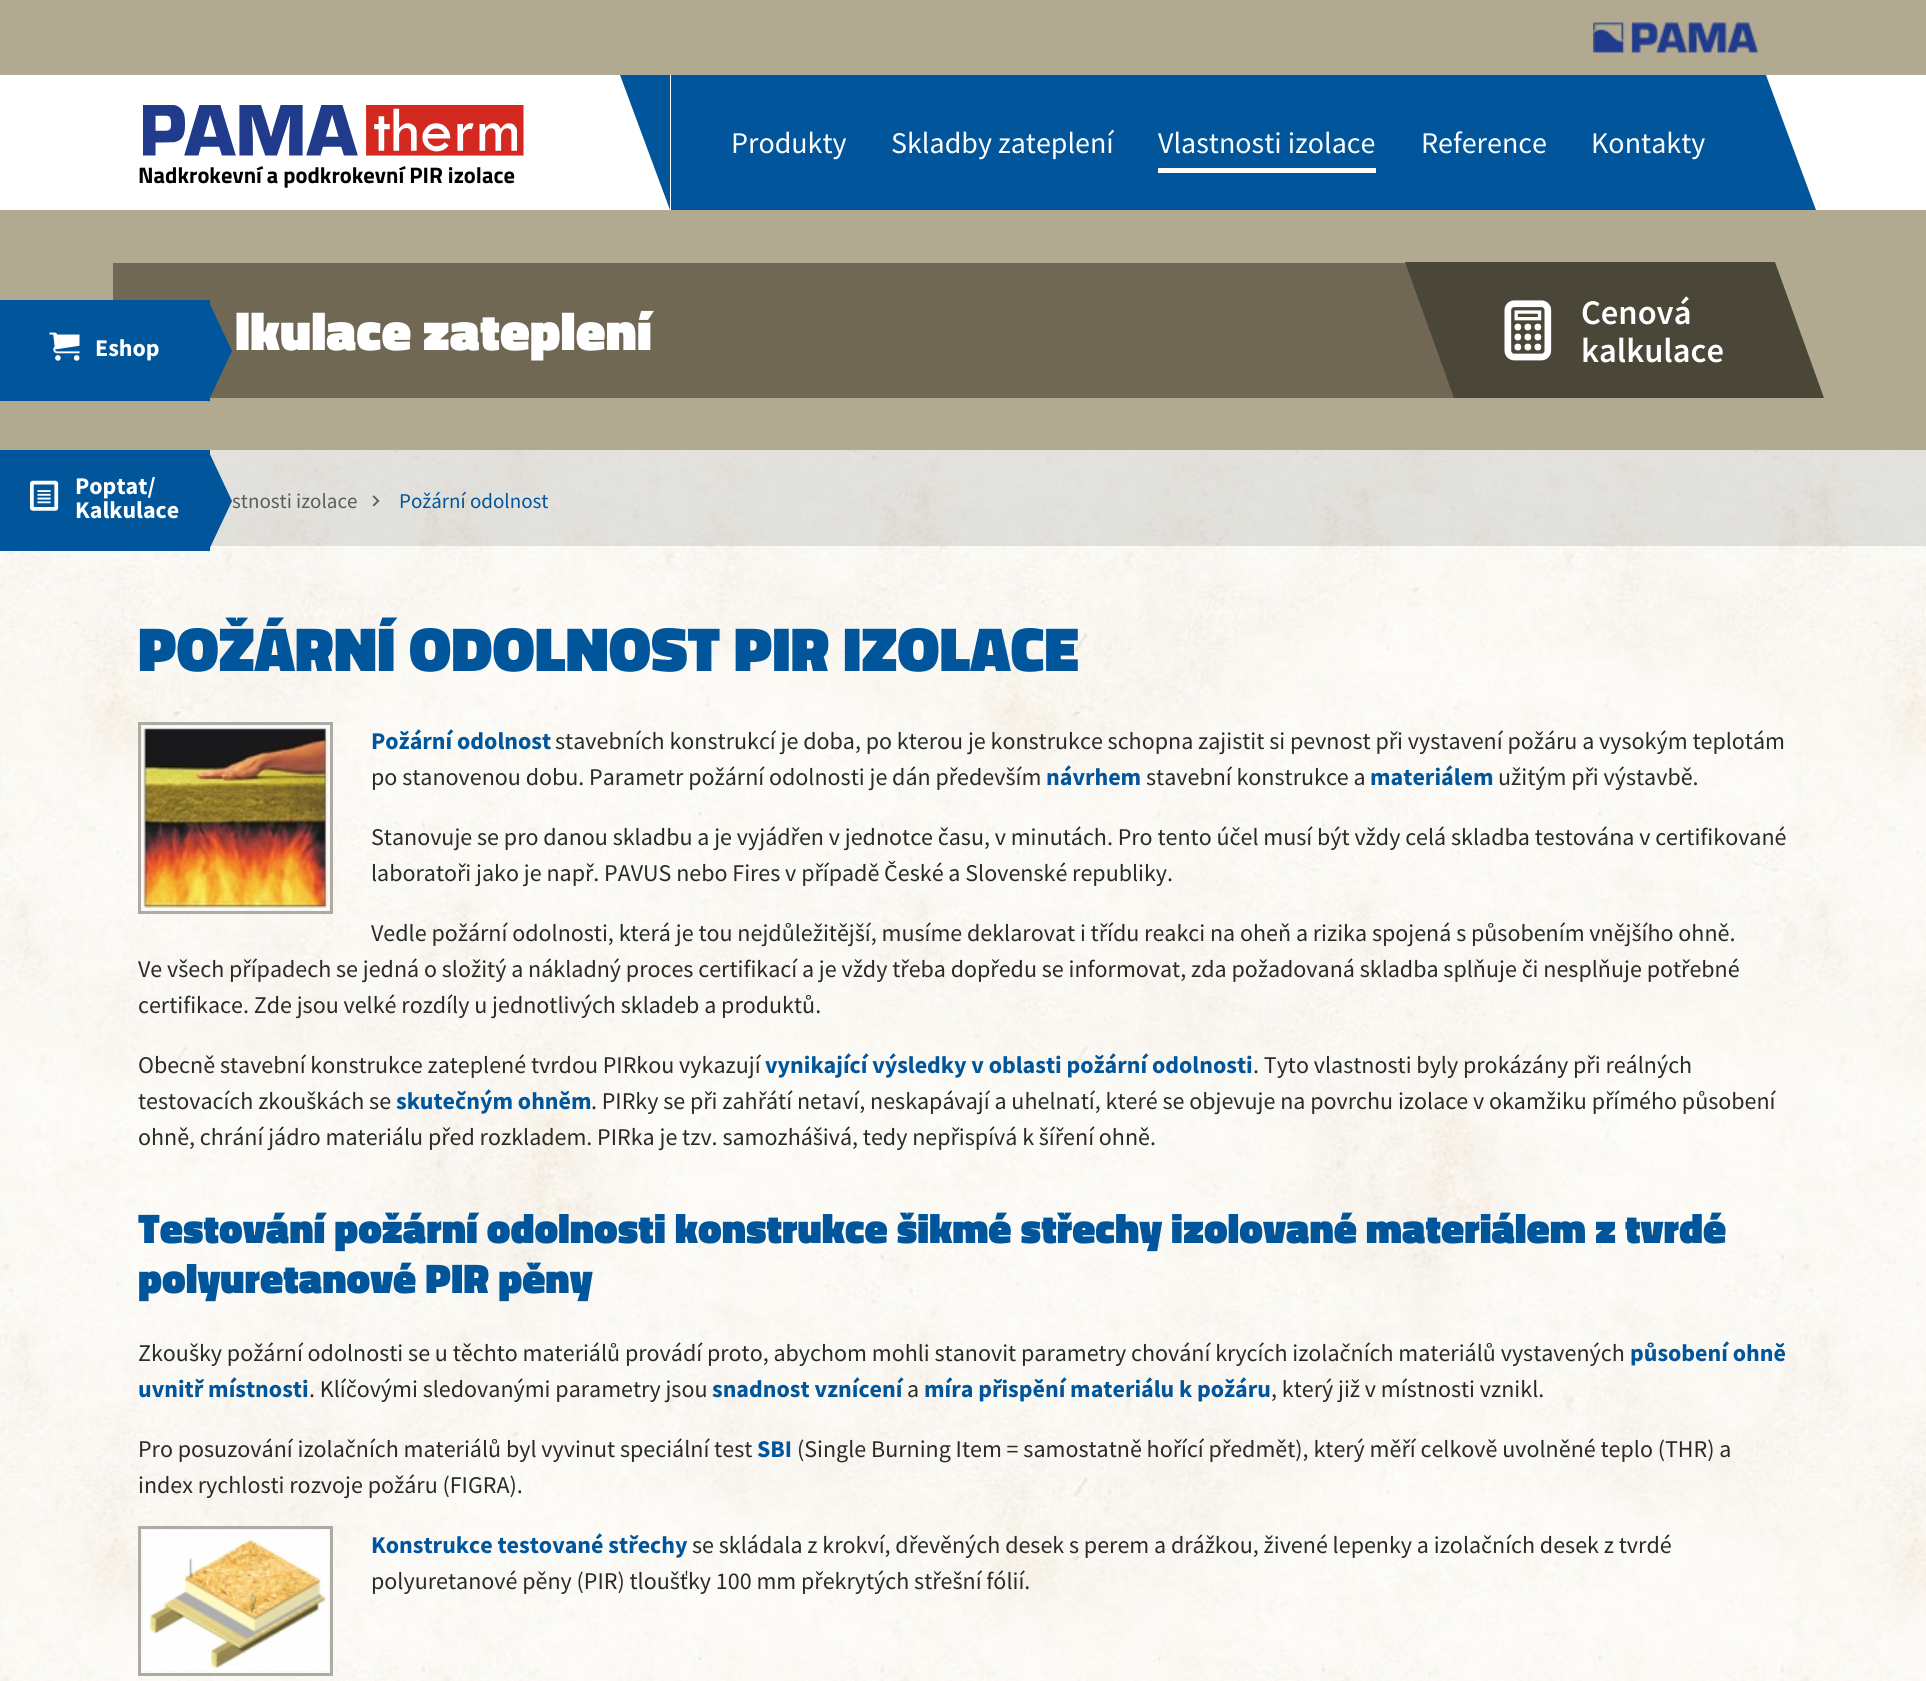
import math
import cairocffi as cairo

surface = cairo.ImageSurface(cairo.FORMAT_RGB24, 1926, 1681)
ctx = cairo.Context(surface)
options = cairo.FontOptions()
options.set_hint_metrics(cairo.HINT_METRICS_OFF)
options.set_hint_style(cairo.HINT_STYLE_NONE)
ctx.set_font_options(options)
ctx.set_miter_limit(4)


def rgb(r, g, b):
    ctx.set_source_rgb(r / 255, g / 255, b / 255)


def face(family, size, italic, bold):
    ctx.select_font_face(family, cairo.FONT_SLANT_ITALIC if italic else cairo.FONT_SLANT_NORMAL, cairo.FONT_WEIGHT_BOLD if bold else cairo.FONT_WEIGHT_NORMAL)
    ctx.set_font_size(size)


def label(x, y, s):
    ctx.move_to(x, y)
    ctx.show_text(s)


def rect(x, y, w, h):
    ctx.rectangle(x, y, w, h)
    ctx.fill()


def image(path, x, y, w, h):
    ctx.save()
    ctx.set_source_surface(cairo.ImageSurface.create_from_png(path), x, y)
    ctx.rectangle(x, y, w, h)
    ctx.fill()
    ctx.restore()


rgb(178, 169, 145)
ctx.paint()
image('image0.png', 1593, 22, 165, 31)
rgb(255, 255, 255)
rect(0, 75, 1926, 135)
rgb(0, 85, 155)
rect(671, 75, 1095, 135)
ctx.new_path()
ctx.move_to(620, 75)
ctx.line_to(670, 75)
ctx.line_to(670, 210)
ctx.close_path()
ctx.fill()
face('Source Sans Pro', 30, 0, 0)
rgb(255, 255, 255)
label(731, 153, 'Produkty')
label(891, 153, 'Skladby zateplení')
label(1158, 153, 'Vlastnosti izolace')
rect(1158, 168, 218, 5)
label(1421, 153, 'Reference')
label(1591, 153, 'Kontakty')
rgb(0, 85, 155)
ctx.new_path()
ctx.move_to(1816, 210)
ctx.line_to(1766, 210)
ctx.line_to(1766, 75)
ctx.close_path()
ctx.fill()
image('image1.png', 143, 105, 381, 51)
face('Titillium Web', 22.5, 0, 1)
rgb(0, 0, 0)
label(138, 183, 'Nadkrokevní a podkrokevní PIR izolace')
rgb(112, 104, 85)
rect(113, 263, 1341, 135)
rgb(0, 85, 155)
rect(0, 300, 210, 101)
image('image2.png', 49, 332, 31, 29)
face('Source Sans Pro', 24, 0, 1)
rgb(255, 255, 255)
label(95, 356, 'Eshop')
rgb(0, 85, 155)
ctx.new_path()
ctx.move_to(208, 402)
ctx.line_to(208, 300)
ctx.line_to(232, 351)
ctx.close_path()
ctx.fill()
face('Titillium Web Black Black', 54, 0, 0)
rgb(255, 255, 255)
label(235, 350, 'lkulace zateplení')
rgb(74, 70, 56)
ctx.new_path()
ctx.move_to(1405, 262)
ctx.line_to(1775, 262)
ctx.line_to(1824, 398)
ctx.line_to(1454, 398)
ctx.close_path()
ctx.fill()
image('image3.png', 1504, 300, 48, 61)
face('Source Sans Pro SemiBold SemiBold', 34.5, 0, 0)
rgb(255, 255, 255)
label(1581, 324, 'Cenová')
label(1581, 362, 'kalkulace')
image('image5.png', 0, 450, 1926, 1231)
rgb(0, 85, 155)
rect(0, 450, 210, 101)
image('image4.png', 30, 480, 29, 31)
face('Source Sans Pro', 24, 0, 1)
rgb(255, 255, 255)
label(75, 494, 'Poptat/')
ctx.set_source_rgba(0, 0, 0, 0.1)
rect(210, 450, 1716, 96)
rgb(0, 85, 155)
ctx.new_path()
ctx.move_to(208, 552)
ctx.line_to(208, 450)
ctx.line_to(232, 501)
ctx.close_path()
ctx.fill()
rgb(255, 255, 255)
label(75, 518, 'Kalkulace')
face('Source Sans Pro', 21, 0, 0)
rgb(92, 92, 92)
label(232, 508, 'stnosti izolace')
image('image6.png', 372, 495, 8, 12)
rgb(0, 85, 155)
label(399, 508, 'Požární odolnost')
face('Titillium Web Black Black', 63, 0, 0)
label(138, 671, 'POŽÁRNÍ ODOLNOST PIR IZOLACE')
ctx.rectangle(139.5, 723.5, 192, 189)
rgb(173, 171, 163)
ctx.set_line_width(3)
ctx.stroke()
image('image7.png', 142, 726, 187, 183)
face('Source Sans Pro', 24, 0, 1)
rgb(0, 85, 155)
label(371, 749, 'Požární odolnost')
face('Source Sans Pro', 24, 0, 0)
rgb(43, 42, 38)
label(555, 749, 'stavebních konstrukcí je doba, po kterou je konstrukce schopna zajistit si pevnost při vystavení požáru a vysokým teplotám')
label(371, 785, 'po stanovenou dobu. Parametr požární odolnosti je dán především')
face('Source Sans Pro', 24, 0, 1)
rgb(0, 85, 155)
label(1046, 785, 'návrhem')
face('Source Sans Pro', 24, 0, 0)
rgb(43, 42, 38)
label(1146, 785, 'stavební konstrukce a')
face('Source Sans Pro', 24, 0, 1)
rgb(0, 85, 155)
label(1370, 785, 'materiálem')
face('Source Sans Pro', 24, 0, 0)
rgb(43, 42, 38)
label(1498, 785, 'užitým při výstavbě.')
label(371, 845, 'Stanovuje se pro danou skladbu a je vyjádřen v jednotce času, v minutách. Pro tento účel musí být vždy celá skladba testována v certifikované')
label(371, 881, 'laboratoři jako je např. PAVUS nebo Fires v případě České a Slovenské republiky.')
label(371, 941, 'Vedle požární odolnosti, která je tou nejdůležitější, musíme deklarovat i třídu reakci na oheň a rizika spojená s působením vnějšího ohně.')
label(138, 977, 'Ve všech případech se jedná o složitý a nákladný proces certifikací a je vždy třeba dopředu se informovat, zda požadovaná skladba splňuje či nesplňuje potřebné')
label(138, 1013, 'certifikace. Zde jsou velké rozdíly u jednotlivých skladeb a produktů.')
label(138, 1073, 'Obecně stavební konstrukce zateplené tvrdou PIRkou vykazují')
face('Source Sans Pro', 24, 0, 1)
rgb(0, 85, 155)
label(765, 1073, 'vynikající výsledky v oblasti požární odolnosti')
face('Source Sans Pro', 24, 0, 0)
rgb(43, 42, 38)
label(1253, 1073, '. Tyto vlastnosti byly prokázány při reálných')
label(138, 1109, 'testovacích zkouškách se')
face('Source Sans Pro', 24, 0, 1)
rgb(0, 85, 155)
label(396, 1109, 'skutečným ohněm')
face('Source Sans Pro', 24, 0, 0)
rgb(43, 42, 38)
label(591, 1109, '. PIRky se při zahřátí netaví, neskapávají a uhelnatí, které se objevuje na povrchu izolace v okamžiku přímého působení')
label(138, 1145, 'ohně, chrání jádro materiálu před rozkladem. PIRka je tzv. samozhášivá, tedy nepřispívá k šíření ohně.')
face('Titillium Web Black Black', 42, 0, 0)
rgb(0, 85, 155)
label(138, 1243, 'Testování požární odolnosti konstrukce šikmé střechy izolované materiálem z tvrdé')
label(138, 1293, 'polyuretanové PIR pěny')
face('Source Sans Pro', 24, 0, 0)
rgb(43, 42, 38)
label(138, 1361, 'Zkoušky požární odolnosti se u těchto materiálů provádí proto, abychom mohli stanovit parametry chování krycích izolačních materiálů vystavených')
face('Source Sans Pro', 24, 0, 1)
rgb(0, 85, 155)
label(1630, 1361, 'působení ohně')
label(138, 1397, 'uvnitř místnosti')
face('Source Sans Pro', 24, 0, 0)
rgb(43, 42, 38)
label(309, 1397, '. Klíčovými sledovanými parametry jsou')
face('Source Sans Pro', 24, 0, 1)
rgb(0, 85, 155)
label(712, 1397, 'snadnost vznícení')
face('Source Sans Pro', 24, 0, 0)
rgb(43, 42, 38)
label(907, 1397, 'a')
face('Source Sans Pro', 24, 0, 1)
rgb(0, 85, 155)
label(924, 1397, 'míra přispění materiálu k požáru')
face('Source Sans Pro', 24, 0, 0)
rgb(43, 42, 38)
label(1271, 1397, ', který již v místnosti vznikl.')
label(138, 1457, 'Pro posuzování izolačních materiálů byl vyvinut speciální test')
face('Source Sans Pro', 24, 0, 1)
rgb(0, 85, 155)
label(757, 1457, 'SBI')
face('Source Sans Pro', 24, 0, 0)
rgb(43, 42, 38)
label(797, 1457, '(Single Burning Item = samostatně hořící předmět), který měří celkově uvolněné teplo (THR) a')
label(138, 1493, 'index rychlosti rozvoje požáru (FIGRA).')
ctx.rectangle(139.5, 1527.5, 192, 147)
rgb(173, 171, 163)
ctx.stroke()
image('image8.png', 142, 1530, 187, 141)
face('Source Sans Pro', 24, 0, 1)
rgb(0, 85, 155)
label(371, 1553, 'Konstrukce testované střechy')
face('Source Sans Pro', 24, 0, 0)
rgb(43, 42, 38)
label(692, 1553, 'se skládala z krokví, dřevěných desek s perem a drážkou, živené lepenky a izolačních desek z tvrdé')
label(371, 1589, 'polyuretanové pěny (PIR) tloušťky 100 mm překrytých střešní fólií.')
surface.write_to_png('render.png')
